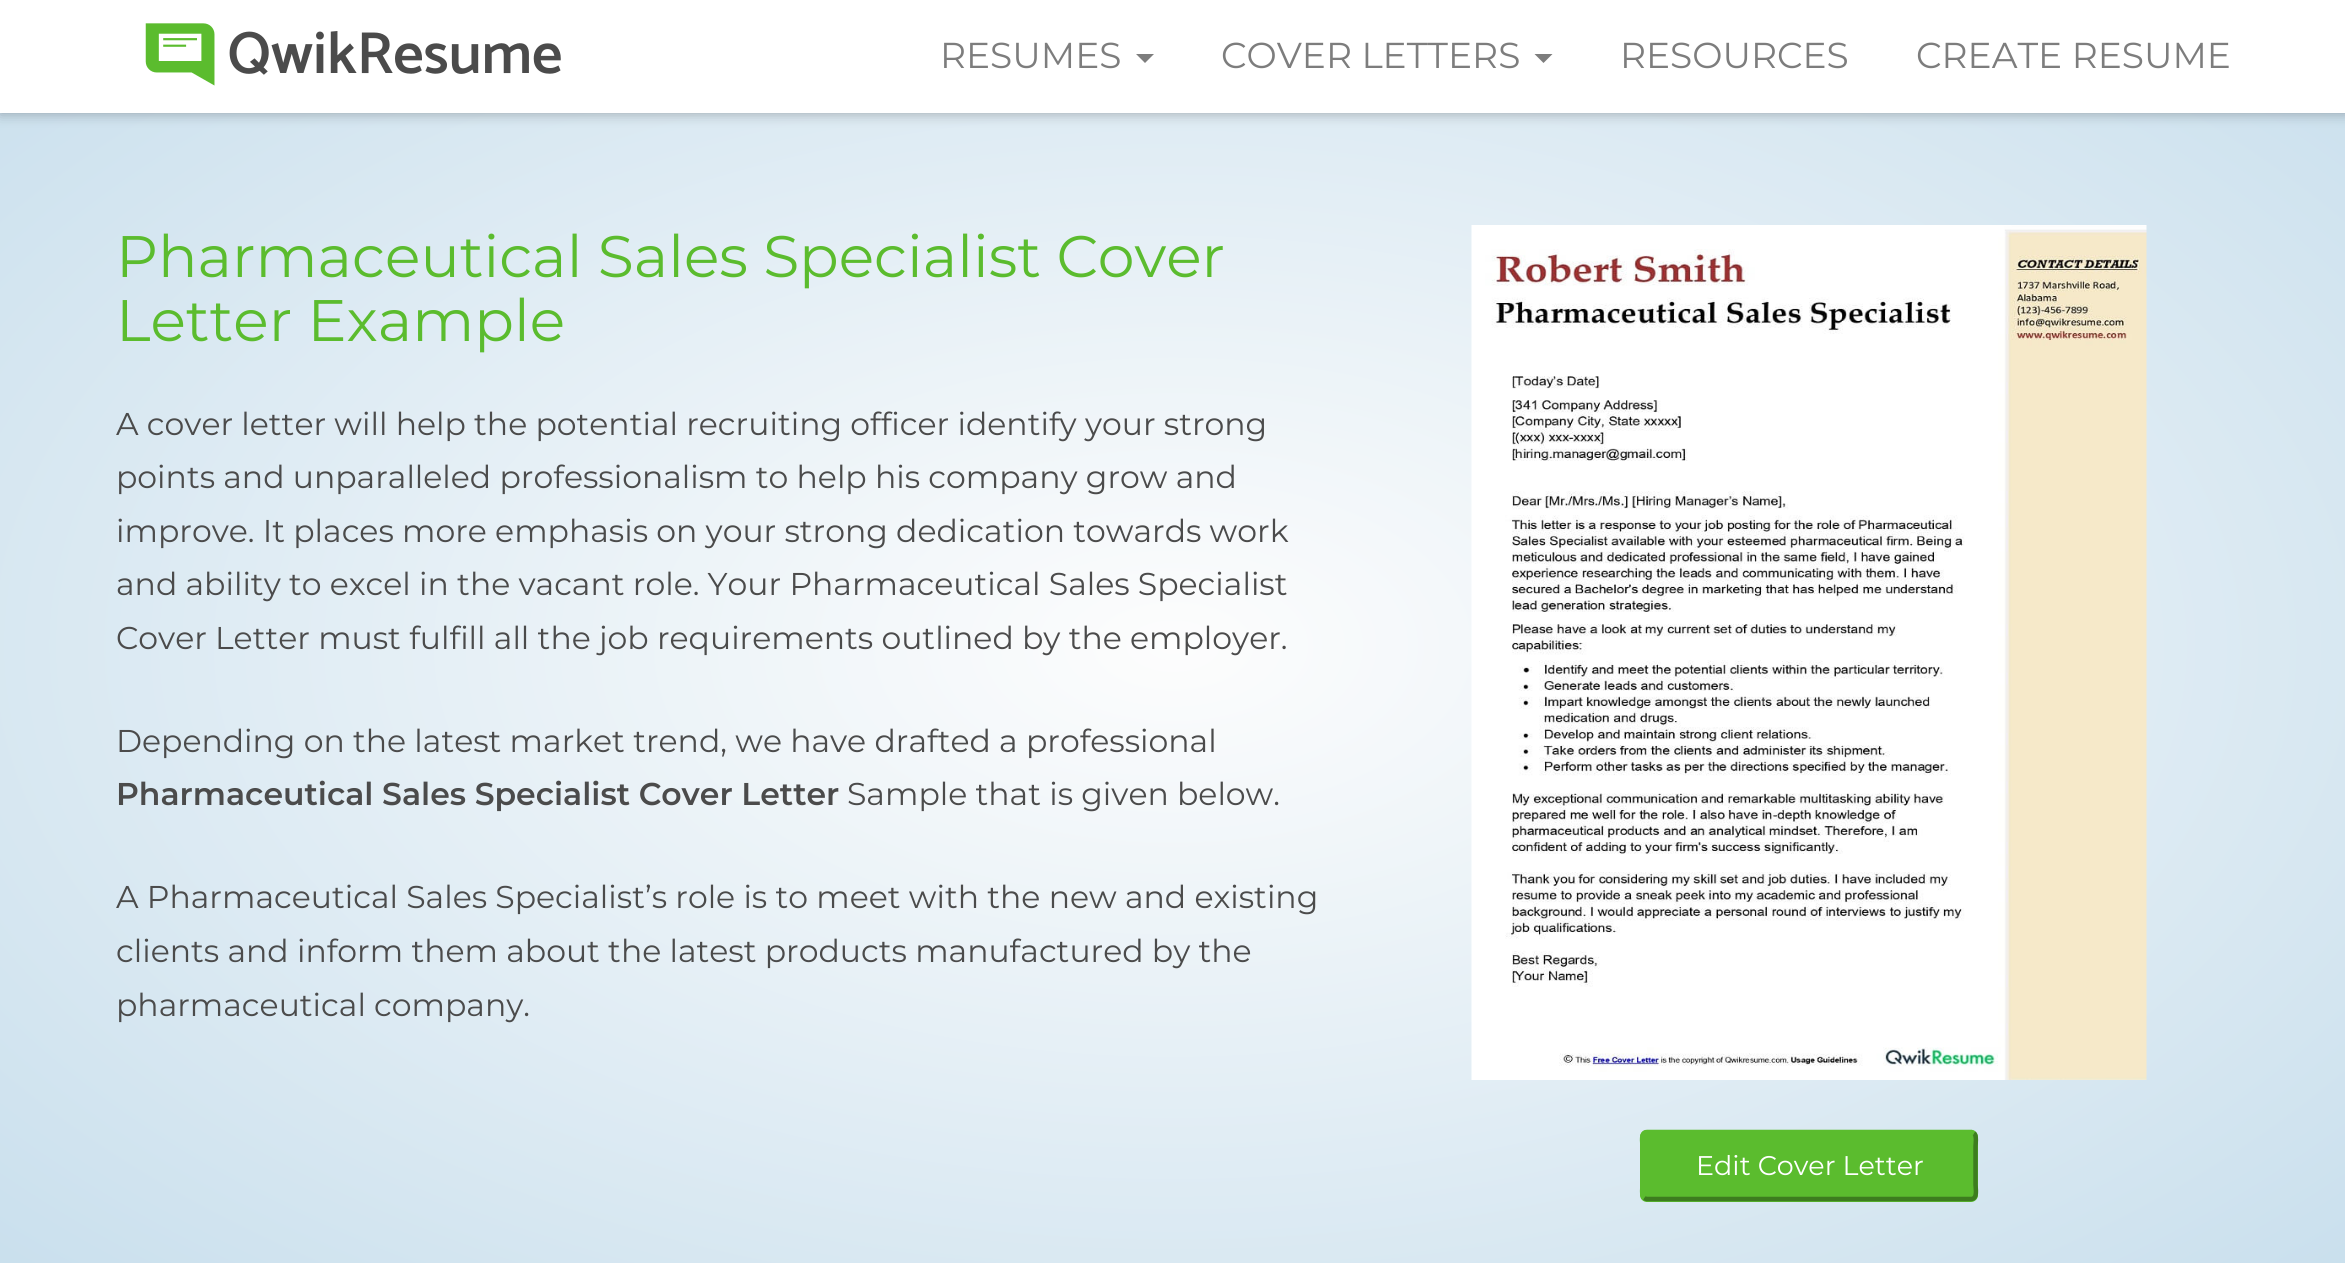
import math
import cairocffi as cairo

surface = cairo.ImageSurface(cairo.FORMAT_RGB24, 2345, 1263)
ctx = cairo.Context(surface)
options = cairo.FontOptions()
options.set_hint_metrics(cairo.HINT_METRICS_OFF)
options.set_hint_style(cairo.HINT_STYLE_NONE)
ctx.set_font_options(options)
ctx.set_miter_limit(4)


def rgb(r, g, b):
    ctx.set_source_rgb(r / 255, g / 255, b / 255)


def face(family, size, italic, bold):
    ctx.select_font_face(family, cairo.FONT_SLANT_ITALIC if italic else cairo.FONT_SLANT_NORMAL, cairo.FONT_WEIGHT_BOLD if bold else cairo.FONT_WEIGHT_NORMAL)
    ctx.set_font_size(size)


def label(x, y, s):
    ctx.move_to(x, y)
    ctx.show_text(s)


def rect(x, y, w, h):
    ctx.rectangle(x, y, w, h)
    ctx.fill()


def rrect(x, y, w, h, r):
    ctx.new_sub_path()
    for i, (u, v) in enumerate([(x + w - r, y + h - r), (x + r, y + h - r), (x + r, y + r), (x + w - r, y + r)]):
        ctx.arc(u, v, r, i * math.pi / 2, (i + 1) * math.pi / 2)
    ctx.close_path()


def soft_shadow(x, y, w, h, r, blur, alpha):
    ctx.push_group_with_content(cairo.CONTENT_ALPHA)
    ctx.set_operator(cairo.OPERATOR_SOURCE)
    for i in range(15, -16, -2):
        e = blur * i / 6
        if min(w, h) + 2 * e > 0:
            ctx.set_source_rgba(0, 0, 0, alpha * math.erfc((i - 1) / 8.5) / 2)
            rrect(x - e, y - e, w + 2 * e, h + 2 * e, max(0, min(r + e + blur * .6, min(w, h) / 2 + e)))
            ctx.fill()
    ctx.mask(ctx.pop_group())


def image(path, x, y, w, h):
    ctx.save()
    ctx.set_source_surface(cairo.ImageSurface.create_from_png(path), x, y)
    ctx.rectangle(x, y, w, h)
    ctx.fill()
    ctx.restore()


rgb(255, 255, 255)
ctx.paint()
gradient = cairo.RadialGradient(0, 0, 0, 0, 0, 1)
gradient.set_matrix(cairo.Matrix(1 / 1659, 0, 0, 1 / 913, -1 * 1173 / 1659, -1 * 646 / 913))
gradient.add_color_stop_rgba(0, 0.992, 0.992, 0.992, 1)
gradient.add_color_stop_rgba(1, 0.788, 0.875, 0.929, 1)
ctx.set_source(gradient)
rect(0, 113, 2345, 1150)
rgb(0, 0, 0)
soft_shadow(0, 0, 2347, 113, 0, 7, 0.3)
rgb(255, 255, 255)
rect(0, 0, 2345, 113)
image('image0.png', 145, 23, 416, 63)
face('Montserrat', 36, 0, 0)
rgb(125, 125, 125)
label(940, 68, 'RESUMES')
ctx.new_path()
ctx.move_to(1136, 54)
ctx.line_to(1154, 54)
ctx.line_to(1145, 63)
ctx.close_path()
ctx.fill()
label(1221, 68, 'COVER LETTERS')
ctx.new_path()
ctx.move_to(1534.5, 54)
ctx.line_to(1552.5, 54)
ctx.line_to(1543.5, 63)
ctx.close_path()
ctx.fill()
label(1620, 68, 'RESOURCES')
label(1916, 68, 'CREATE RESUME')
face('Montserrat', 58.5, 0, 0)
rgb(91, 188, 46)
label(116, 277, 'Pharmaceutical Sales Specialist Cover')
label(116, 341, 'Letter Example')
face('Montserrat', 31.5, 0, 0)
rgb(75, 75, 75)
label(116, 435, 'A cover letter will help the potential recruiting officer identify your strong')
label(116, 488, 'points and unparalleled professionalism to help his company grow and')
label(116, 542, 'improve. It places more emphasis on your strong dedication towards work')
label(116, 595, 'and ability to excel in the vacant role. Your Pharmaceutical Sales Specialist')
label(116, 649, 'Cover Letter must fulfill all the job requirements outlined by the employer.')
label(116, 752, 'Depending on the latest market trend, we have drafted a professional')
face('Montserrat SemiBold', 31.5, 0, 0)
label(116, 805, 'Pharmaceutical Sales Specialist Cover Letter')
face('Montserrat', 31.5, 0, 0)
label(847, 805, 'Sample that is given below.')
label(116, 908, 'A Pharmaceutical Sales Specialist’s role is to meet with the new and existing')
label(116, 962, 'clients and inform them about the latest products manufactured by the')
label(116, 1016, 'pharmaceutical company.')
image('image1.png', 1471, 225, 676, 855)
rgb(91, 188, 46)
rrect(1640, 1130, 338, 72, 7)
ctx.fill()
ctx.new_path()
ctx.move_to(1974, 1133)
ctx.curve_to(1977, 1136, 1975.5, 1144.5, 1975.5, 1146)
ctx.line_to(1975.5, 1185)
ctx.curve_to(1975.5, 1188, 1978, 1199, 1971, 1199)
ctx.line_to(1646.5, 1199)
ctx.line_to(1644, 1198)
rgb(61, 125, 31)
ctx.set_line_width(4.5)
ctx.stroke()
ctx.new_path()
ctx.move_to(1644, 1198)
ctx.curve_to(1641, 1195, 1642.5, 1186.5, 1642.5, 1185)
ctx.line_to(1642.5, 1146)
ctx.curve_to(1642.5, 1143, 1640, 1132, 1647, 1132)
ctx.line_to(1971.5, 1132)
ctx.line_to(1974, 1133)
rgb(91, 188, 46)
ctx.stroke()
face('Montserrat', 27, 0, 0)
rgb(255, 255, 255)
label(1696, 1175, 'Edit Cover Letter')
surface.write_to_png('render.png')
